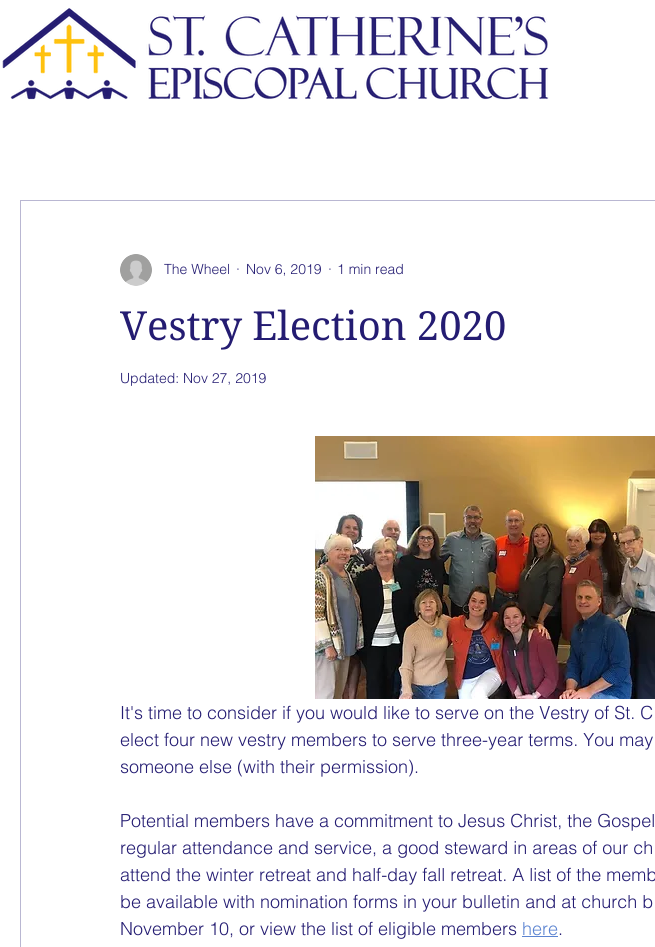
import math
import cairocffi as cairo

surface = cairo.ImageSurface(cairo.FORMAT_RGB24, 655, 947)
ctx = cairo.Context(surface)
options = cairo.FontOptions()
options.set_hint_metrics(cairo.HINT_METRICS_OFF)
options.set_hint_style(cairo.HINT_STYLE_NONE)
ctx.set_font_options(options)
ctx.set_miter_limit(4)


def rgb(r, g, b):
    ctx.set_source_rgb(r / 255, g / 255, b / 255)


def face(family, size, italic, bold):
    ctx.select_font_face(family, cairo.FONT_SLANT_ITALIC if italic else cairo.FONT_SLANT_NORMAL, cairo.FONT_WEIGHT_BOLD if bold else cairo.FONT_WEIGHT_NORMAL)
    ctx.set_font_size(size)


def label(x, y, s):
    ctx.move_to(x, y)
    ctx.show_text(s)


def rect(x, y, w, h):
    ctx.rectangle(x, y, w, h)
    ctx.fill()


def image(path, x, y, w, h):
    ctx.save()
    ctx.set_source_surface(cairo.ImageSurface.create_from_png(path), x, y)
    ctx.rectangle(x, y, w, h)
    ctx.fill()
    ctx.restore()


rgb(255, 255, 255)
ctx.paint()
image('image0.png', 2, 8, 547, 92)
ctx.rectangle(20.5, 200.5, 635, 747)
rgb(185, 183, 210)
ctx.set_line_width(1)
ctx.stroke()
image('image1.png', 120, 254, 32, 32)
face('helvetica Light', 14, 0, 0)
rgb(36, 28, 114)
label(164, 274, 'The Wheel')
label(236, 274, '·')
label(246, 274, 'Nov 6, 2019')
label(328, 274, '·')
label(337, 274, '1 min read')
face('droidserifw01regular', 40, 0, 0)
label(120, 340, 'Vestry Election 2020')
face('helvetica Light', 14, 0, 0)
label(120, 383, 'Updated: Nov 27, 2019')
image('image2.png', 315, 436, 340, 263)
face('helvetica Light', 18, 0, 0)
label(120, 719, 'It\'s time to consider if you would like to serve on the Vestry of St. C')
label(120, 746, 'elect four new vestry members to serve three-year terms. You may')
label(120, 773, 'someone else (with their permission).')
label(120, 827, 'Potential members have a commitment to Jesus Christ, the Gospel')
label(120, 854, 'regular attendance and service, a good steward in areas of our ch')
label(120, 881, 'attend the winter retreat and half-day fall retreat. A list of the memb')
label(120, 908, 'be available with nomination forms in your bulletin and at church b')
label(120, 935, 'November 10, or view the list of eligible members')
rgb(92, 132, 209)
label(522, 935, 'here')
rect(522, 936, 36, 1)
rgb(36, 28, 114)
label(558, 935, '.')
surface.write_to_png('render.png')
